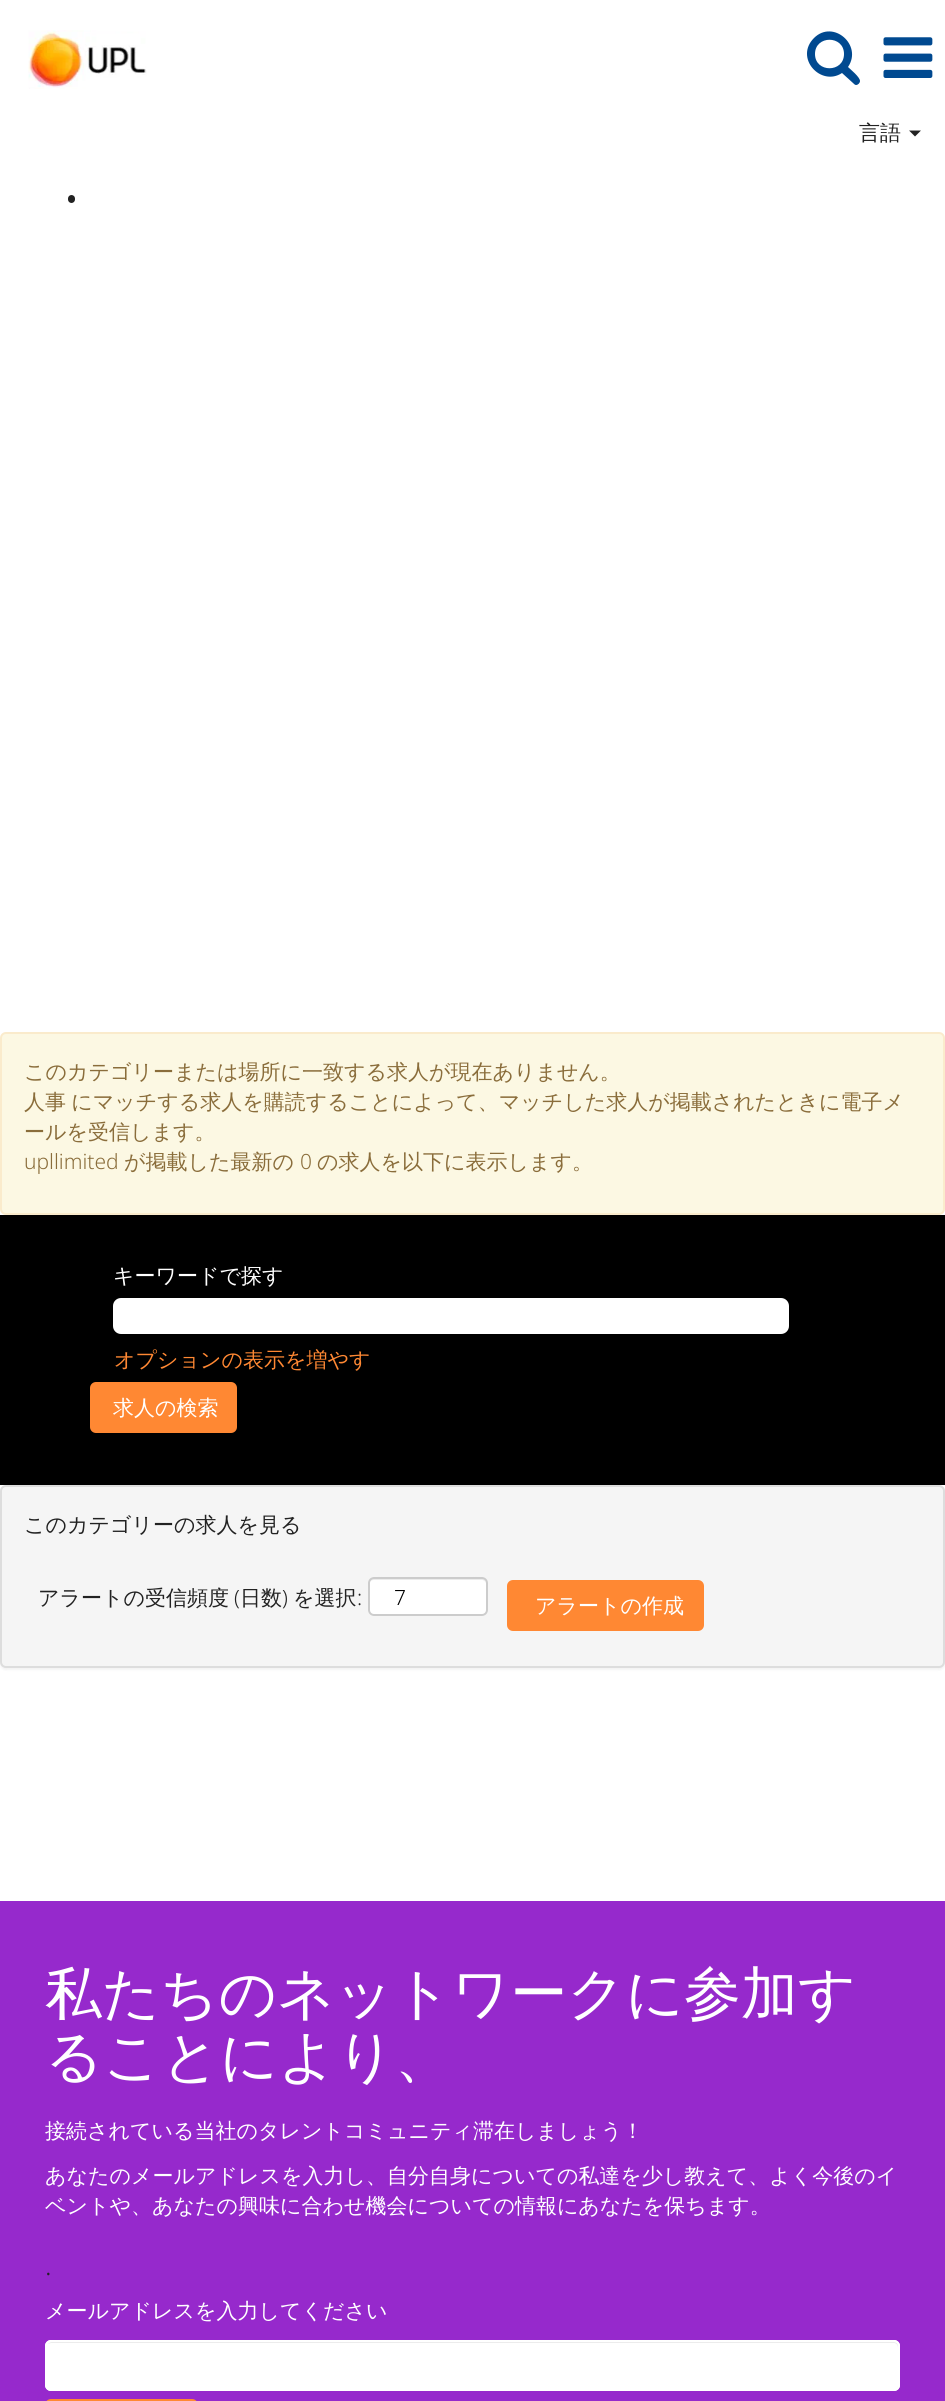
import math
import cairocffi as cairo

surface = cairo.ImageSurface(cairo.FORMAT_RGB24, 945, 2401)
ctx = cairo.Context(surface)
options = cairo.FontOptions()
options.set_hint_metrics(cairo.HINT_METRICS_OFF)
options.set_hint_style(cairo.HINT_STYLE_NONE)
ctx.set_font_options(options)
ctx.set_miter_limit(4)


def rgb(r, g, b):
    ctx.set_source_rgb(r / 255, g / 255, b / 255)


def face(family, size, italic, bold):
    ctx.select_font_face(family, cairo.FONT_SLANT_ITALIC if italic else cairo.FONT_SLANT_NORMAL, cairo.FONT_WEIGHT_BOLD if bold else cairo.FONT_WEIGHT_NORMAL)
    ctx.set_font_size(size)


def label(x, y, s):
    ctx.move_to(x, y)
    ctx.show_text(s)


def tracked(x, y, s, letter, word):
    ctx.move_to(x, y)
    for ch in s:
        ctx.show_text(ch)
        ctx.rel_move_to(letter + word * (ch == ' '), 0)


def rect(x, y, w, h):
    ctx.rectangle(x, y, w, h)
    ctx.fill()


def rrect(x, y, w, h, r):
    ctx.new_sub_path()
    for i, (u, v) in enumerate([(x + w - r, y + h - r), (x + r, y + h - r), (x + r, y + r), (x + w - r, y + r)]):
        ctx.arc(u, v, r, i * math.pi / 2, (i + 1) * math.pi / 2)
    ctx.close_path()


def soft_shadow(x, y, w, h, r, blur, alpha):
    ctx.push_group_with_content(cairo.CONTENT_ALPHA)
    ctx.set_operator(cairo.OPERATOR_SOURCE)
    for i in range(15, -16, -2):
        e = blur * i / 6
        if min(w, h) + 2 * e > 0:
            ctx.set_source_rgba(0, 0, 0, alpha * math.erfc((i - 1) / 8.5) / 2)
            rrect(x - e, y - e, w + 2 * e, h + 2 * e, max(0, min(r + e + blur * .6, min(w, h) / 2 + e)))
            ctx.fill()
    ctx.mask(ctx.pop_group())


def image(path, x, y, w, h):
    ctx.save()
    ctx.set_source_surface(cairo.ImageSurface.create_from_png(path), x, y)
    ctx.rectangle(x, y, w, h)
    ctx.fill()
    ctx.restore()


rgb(255, 255, 255)
ctx.paint()
image('image0.png', 28, 30, 119, 59)
rgb(0, 73, 144)
ctx.new_path()
ctx.move_to(844, 54)
ctx.curve_to(844, 73, 815, 73, 815, 54)
ctx.curve_to(815, 35, 844, 35, 844, 54)
ctx.close_path()
ctx.move_to(860, 81)
ctx.curve_to(860, 77, 850, 69, 848, 67)
ctx.curve_to(863, 45, 833, 19, 814, 38)
ctx.curve_to(794, 58, 821, 87, 842, 73)
ctx.line_to(853, 83)
ctx.curve_to(854, 84, 855, 85, 856, 85)
ctx.curve_to(858, 85, 860, 83, 860, 81)
ctx.close_path()
ctx.fill()
image('image1.png', 883, 37, 50, 41)
face('WenQuanYi Zen Hei Medium', 21, 0, 0)
rgb(34, 34, 34)
label(859, 140, '言語')
ctx.new_path()
ctx.move_to(909, 130.5)
ctx.line_to(921, 130.5)
ctx.line_to(915, 136.5)
ctx.close_path()
ctx.fill()
rrect(68, 195, 7, 8, 3.5)
ctx.fill()
rgb(252, 248, 227)
rrect(1, 1033, 943, 181, 5)
ctx.fill_preserve()
rgb(250, 235, 204)
ctx.stroke()
rgb(138, 109, 59)
label(24, 1079, 'このカテゴリーまたは場所に一致する求人が現在ありません。')
tracked(24, 1109, '人事 にマッチする求人を購読することによって、マッチした求人が掲載されたときに電子メ', 0, -1)
label(24, 1139, 'ールを受信します。')
face('Noto Sans Light', 21, 0, 0)
label(24, 1169, 'upllimited')
face('WenQuanYi Zen Hei Medium', 21, 0, 0)
label(124, 1169, 'が掲載した最新の')
face('Noto Sans Light', 21, 0, 0)
label(300, 1169, '0')
face('WenQuanYi Zen Hei Medium', 21, 0, 0)
label(317, 1169, 'の求人を以下に表示します。')
rgb(0, 0, 0)
rect(0, 1215, 945, 270)
rgb(255, 255, 255)
label(113, 1283, 'キーワードで探す')
rrect(113, 1298, 676, 36, 8)
ctx.fill()
rgb(255, 136, 51)
label(114, 1367, 'オプションの表示を増やす')
rrect(90, 1382, 147, 51, 6)
ctx.fill()
rgb(255, 255, 255)
label(113, 1415, '求人の検索')
rgb(0, 0, 0)
soft_shadow(0, 1487, 945, 183, 6, 1, 0.05)
rgb(245, 245, 245)
rrect(1, 1486, 943, 181, 5)
ctx.fill_preserve()
rgb(221, 221, 221)
ctx.stroke()
rgb(34, 34, 34)
label(24, 1532, 'このカテゴリーの求人を見る')
label(38, 1605, 'アラートの受信頻度')
face('Noto Sans Light', 21, 0, 0)
label(234, 1605, '(')
face('WenQuanYi Zen Hei Medium', 21, 0, 0)
label(240, 1605, '日数')
face('Noto Sans Light', 21, 0, 0)
label(282, 1605, ')')
face('WenQuanYi Zen Hei Medium', 21, 0, 0)
label(293, 1605, 'を選択')
face('Noto Sans Light', 21, 0, 0)
label(357, 1605, ':')
rgb(255, 255, 255)
rrect(368, 1577, 120, 39, 6)
ctx.fill()
rgb(236, 236, 236)
ctx.new_path()
ctx.move_to(374, 1580)
ctx.line_to(482, 1580)
ctx.curve_to(484, 1580, 486, 1582, 486, 1584)
ctx.curve_to(486, 1573, 468, 1578, 463, 1578)
ctx.line_to(392, 1578)
ctx.curve_to(387, 1578, 369, 1573, 369, 1584)
ctx.curve_to(369, 1582, 371, 1580, 374, 1580)
ctx.close_path()
ctx.fill()
rrect(369, 1578, 118, 37, 5)
rgb(204, 204, 204)
ctx.stroke()
rgb(0, 0, 0)
label(394, 1605, '7')
rgb(255, 136, 51)
rrect(507, 1580, 197, 51, 6)
ctx.fill()
face('WenQuanYi Zen Hei Medium', 21, 0, 0)
rgb(255, 255, 255)
label(535, 1613, 'アラートの作成')
rgb(150, 41, 204)
rect(0, 1901, 945, 500)
face('WenQuanYi Zen Hei Medium', 57, 0, 0)
rgb(255, 255, 255)
label(45, 2013, '私たちのネットワークに参加す')
label(45, 2076, 'ることにより、')
face('WenQuanYi Zen Hei Medium', 21, 0, 0)
label(45, 2138, '接続されている当社のタレントコミュニティ滞在しましょう！')
label(45, 2183, 'あなたのメールアドレスを入力し、自分自身についての私達を少し教えて、よく今後のイ')
label(45, 2213, 'ベントや、あなたの興味に合わせ機会についての情報にあなたを保ちます。')
face('Noto Sans Light', 27, 0, 0)
rgb(34, 34, 34)
label(45, 2275, '.')
face('WenQuanYi Zen Hei Medium', 21, 0, 0)
rgb(255, 255, 255)
label(45, 2318, 'メールアドレスを入力してください')
rrect(45, 2340, 855, 51, 6)
ctx.fill()
rgb(236, 236, 236)
ctx.new_path()
ctx.move_to(51, 2343)
ctx.line_to(894, 2343)
ctx.curve_to(896, 2343, 898, 2345, 898, 2348)
ctx.line_to(898, 2386)
ctx.line_to(897, 2389)
ctx.curve_to(898, 2388, 899, 2386, 899, 2385)
ctx.line_to(899, 2347)
ctx.curve_to(899, 2344, 897, 2342, 894, 2342)
ctx.line_to(52, 2342)
ctx.curve_to(50, 2342, 49, 2343, 48, 2344)
ctx.close_path()
ctx.fill()
rrect(46, 2341, 853, 49, 5)
rgb(255, 255, 255)
ctx.stroke()
rgb(255, 136, 51)
rrect(45, 2399, 153, 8, 6)
ctx.fill()
surface.write_to_png('render.png')
